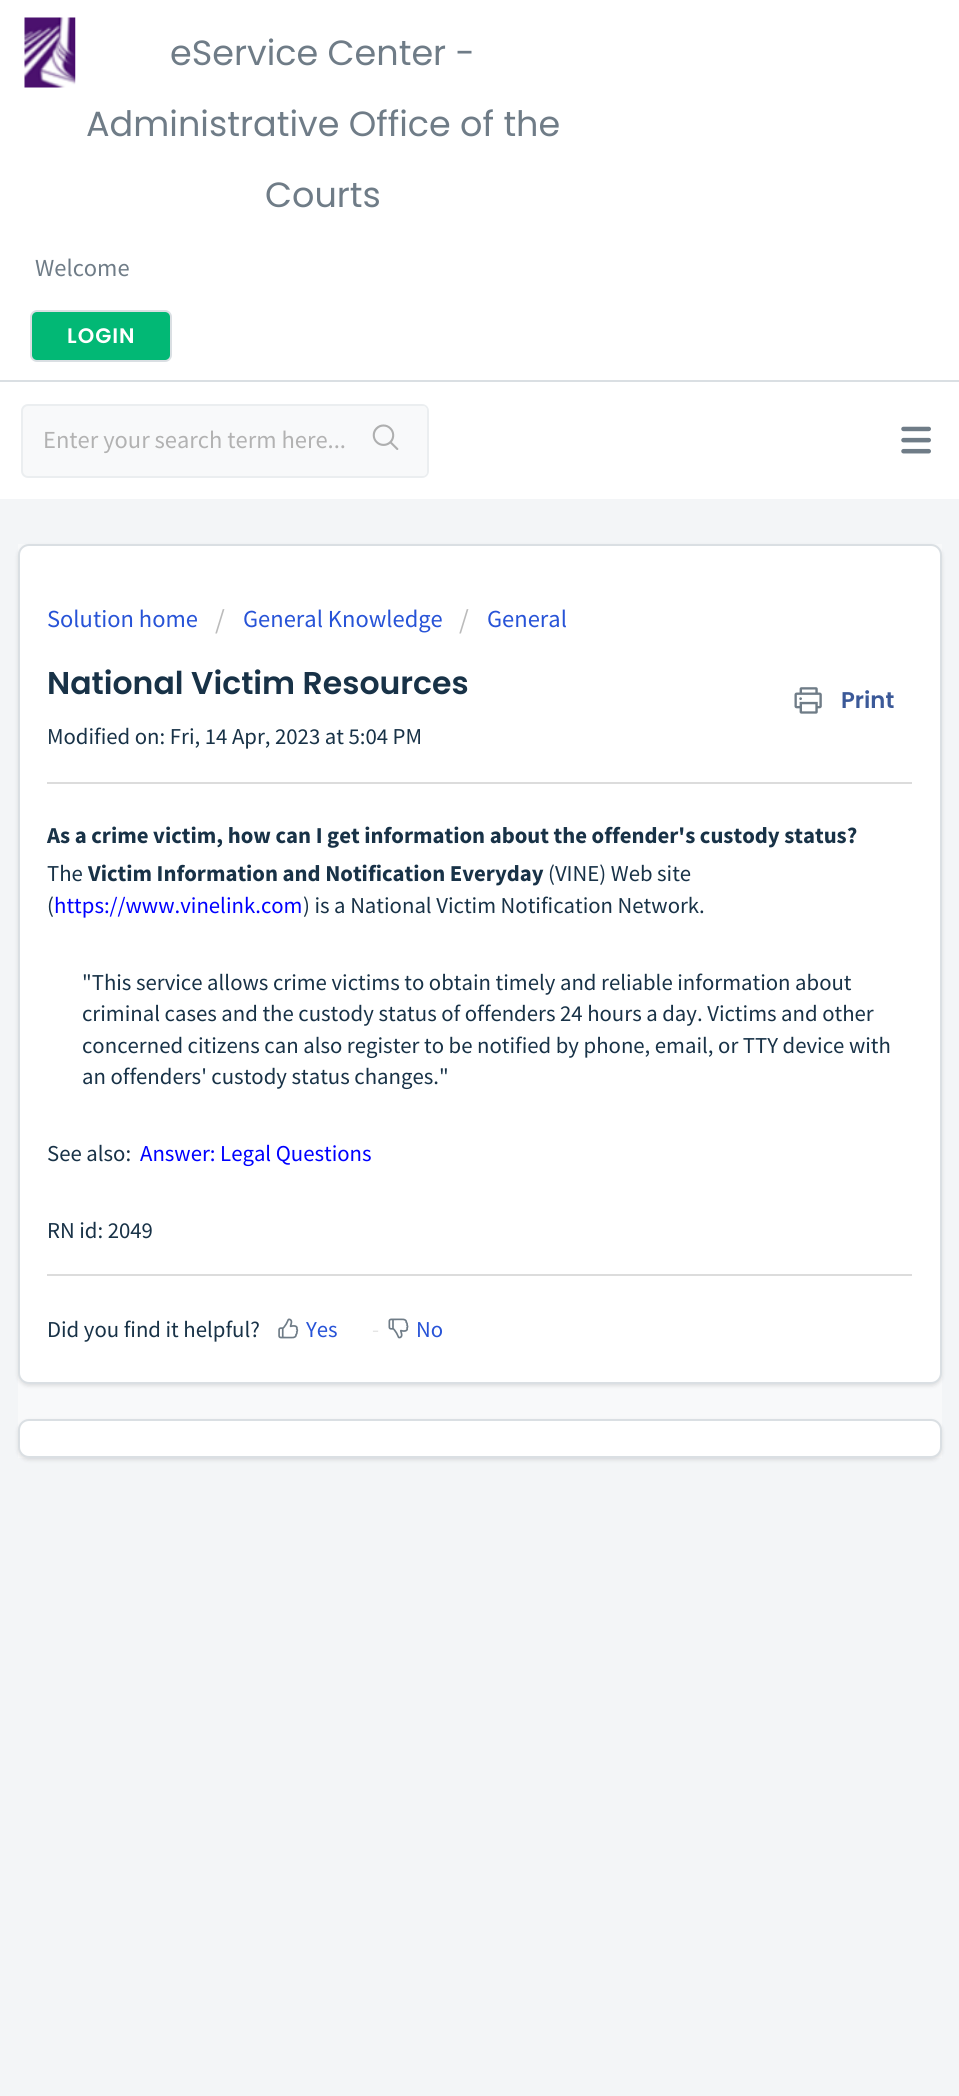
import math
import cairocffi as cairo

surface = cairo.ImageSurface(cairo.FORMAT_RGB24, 959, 2096)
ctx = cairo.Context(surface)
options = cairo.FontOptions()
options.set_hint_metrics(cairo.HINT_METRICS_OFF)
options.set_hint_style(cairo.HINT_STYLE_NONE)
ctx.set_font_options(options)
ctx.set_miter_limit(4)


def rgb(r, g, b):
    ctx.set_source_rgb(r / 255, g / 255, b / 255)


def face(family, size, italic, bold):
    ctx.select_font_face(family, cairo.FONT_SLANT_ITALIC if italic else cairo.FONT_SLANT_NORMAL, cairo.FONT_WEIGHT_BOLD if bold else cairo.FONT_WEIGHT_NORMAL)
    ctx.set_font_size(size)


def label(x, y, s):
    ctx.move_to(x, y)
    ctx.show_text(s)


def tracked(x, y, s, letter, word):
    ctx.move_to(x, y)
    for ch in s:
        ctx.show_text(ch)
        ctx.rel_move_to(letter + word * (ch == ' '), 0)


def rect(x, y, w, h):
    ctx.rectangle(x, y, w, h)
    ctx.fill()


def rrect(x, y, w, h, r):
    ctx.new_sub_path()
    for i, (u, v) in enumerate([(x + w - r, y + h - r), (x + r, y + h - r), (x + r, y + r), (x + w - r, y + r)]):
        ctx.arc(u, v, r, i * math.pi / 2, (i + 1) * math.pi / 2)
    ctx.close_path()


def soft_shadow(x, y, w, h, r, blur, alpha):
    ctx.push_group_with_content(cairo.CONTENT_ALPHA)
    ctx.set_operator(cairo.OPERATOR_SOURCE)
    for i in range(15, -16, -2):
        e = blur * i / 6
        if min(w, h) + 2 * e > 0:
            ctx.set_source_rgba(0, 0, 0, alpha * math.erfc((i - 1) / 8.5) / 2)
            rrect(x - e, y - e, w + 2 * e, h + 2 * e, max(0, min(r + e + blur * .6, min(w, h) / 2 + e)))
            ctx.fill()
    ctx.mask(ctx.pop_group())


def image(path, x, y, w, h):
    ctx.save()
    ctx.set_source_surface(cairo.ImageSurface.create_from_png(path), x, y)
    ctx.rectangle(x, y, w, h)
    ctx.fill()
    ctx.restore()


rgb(243, 245, 247)
ctx.paint()
rgb(255, 255, 255)
rect(0, 0, 959, 380)
rgb(218, 223, 227)
rect(0, 380, 959, 2)
image('image0.png', 24, 17, 52, 71)
face('Poppins', 35, 0, 0)
rgb(111, 124, 135)
label(170, 65, 'eService Center -')
label(86, 136, 'Administrative Office of the')
label(265, 207, 'Courts')
face('Source Sans Pro', 24.5, 0, 0)
label(35, 276, 'Welcome')
rgb(2, 184, 117)
rrect(31, 311, 140, 50, 6)
ctx.fill_preserve()
rgb(218, 223, 227)
ctx.stroke()
face('Poppins SemiBold', 21, 0, 0)
rgb(255, 255, 255)
tracked(67, 343, 'LOGIN', 1, 0)
rect(0, 382, 959, 117)
image('image1.png', 901, 426, 30, 28)
rgb(248, 249, 250)
rrect(22, 405, 406, 72, 6)
ctx.fill_preserve()
rgb(235, 238, 240)
ctx.stroke()
face('Source Sans Pro', 24.5, 0, 0)
rgb(178, 178, 178)
label(43, 448, 'Enter your search term here...')
rgb(248, 249, 250)
rrect(347, 406, 80, 70, 4)
ctx.fill()
image('image2.png', 372, 424, 27, 26)
rect(18, 544, 924, 914)
rgb(63, 63, 68)
soft_shadow(18, 546, 924, 840, 11, 2, 0.15)
rgb(255, 255, 255)
rrect(19, 545, 922, 838, 10)
ctx.fill_preserve()
rgb(218, 223, 227)
ctx.stroke()
rgb(39, 83, 215)
label(47, 627, 'Solution home')
face('Source Sans Pro', 28, 0, 0)
rgb(187, 187, 187)
label(215, 629, '/')
face('Source Sans Pro', 24.5, 0, 0)
rgb(39, 83, 215)
label(243, 627, 'General Knowledge')
face('Source Sans Pro', 28, 0, 0)
rgb(187, 187, 187)
label(459, 629, '/')
face('Source Sans Pro', 24.5, 0, 0)
rgb(39, 83, 215)
label(487, 627, 'General')
face('Poppins SemiBold', 31.5, 0, 0)
rgb(24, 50, 71)
label(47, 694, 'National Victim Resources')
image('image3.png', 794, 687, 28, 27)
face('Poppins SemiBold', 22.75, 0, 0)
rgb(59, 89, 152)
label(841, 708, 'Print')
face('Source Sans Pro', 22.75, 0, 0)
rgb(24, 50, 71)
label(47, 744, 'Modified on: Fri, 14 Apr, 2023 at 5:04 PM')
rgb(220, 220, 220)
rect(47, 782, 865, 2)
face('Source Sans Pro', 22.75, 0, 1)
rgb(24, 50, 71)
label(47, 843, 'As a crime victim, how can I get information about the offender\'s custody status?')
face('Source Sans Pro', 22.75, 0, 0)
label(47, 881, 'The')
face('Source Sans Pro', 22.75, 0, 1)
label(88, 881, 'Victim Information and Notification Everyday')
face('Source Sans Pro', 22.75, 0, 0)
label(548, 881, '(VINE) Web site')
label(47, 913, '(')
rgb(0, 0, 255)
label(54, 913, 'https://www.vinelink.com')
rgb(24, 50, 71)
label(303, 913, ') is a National Victim Notification Network.')
label(82, 990, '"This service allows crime victims to obtain timely and reliable information about')
label(82, 1021, 'criminal cases and the custody status of offenders 24 hours a day. Victims and other')
label(82, 1053, 'concerned citizens can also register to be notified by phone, email, or TTY device with')
label(82, 1084, 'an offenders\' custody status changes."')
label(47, 1161, 'See also:')
rgb(0, 0, 255)
label(140, 1161, 'Answer: Legal Questions')
rgb(24, 50, 71)
label(47, 1238, 'RN id: 2049')
rgb(220, 220, 220)
rect(47, 1274, 865, 2)
rgb(24, 50, 71)
label(47, 1337, 'Did you find it helpful?')
image('image4.png', 278, 1318, 21, 21)
rgb(39, 83, 215)
label(306, 1337, 'Yes')
rgb(229, 229, 229)
label(372, 1337, '-')
image('image5.png', 388, 1318, 21, 21)
rgb(39, 83, 215)
label(416, 1337, 'No')
rgb(63, 63, 68)
soft_shadow(18, 1421, 924, 39, 11, 2, 0.15)
rgb(255, 255, 255)
rrect(19, 1420, 922, 37, 10)
ctx.fill_preserve()
rgb(218, 223, 227)
ctx.stroke()
surface.write_to_png('render.png')
